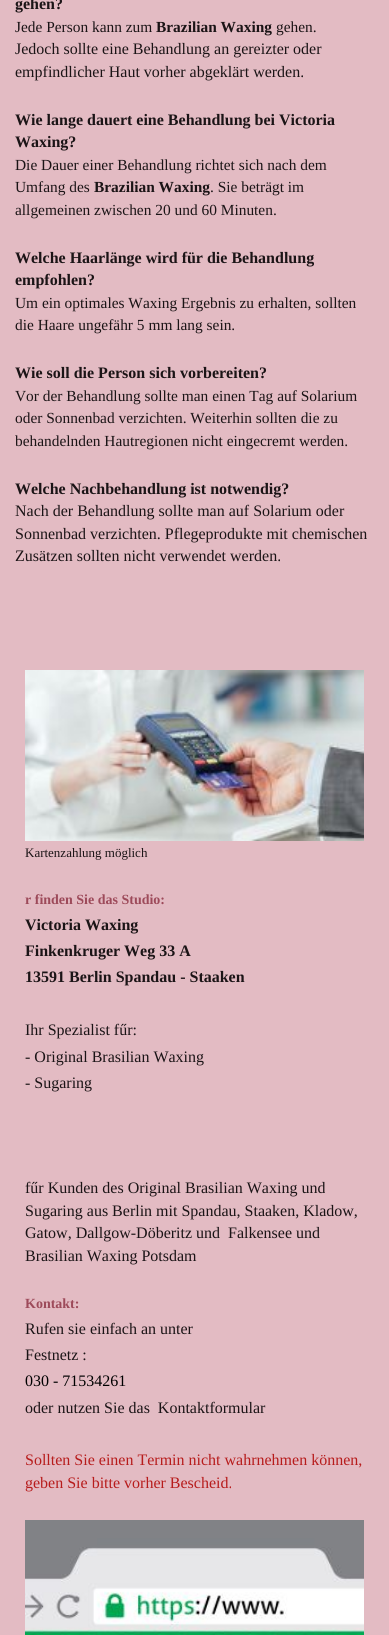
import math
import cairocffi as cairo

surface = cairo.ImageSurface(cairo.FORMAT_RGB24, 389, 1635)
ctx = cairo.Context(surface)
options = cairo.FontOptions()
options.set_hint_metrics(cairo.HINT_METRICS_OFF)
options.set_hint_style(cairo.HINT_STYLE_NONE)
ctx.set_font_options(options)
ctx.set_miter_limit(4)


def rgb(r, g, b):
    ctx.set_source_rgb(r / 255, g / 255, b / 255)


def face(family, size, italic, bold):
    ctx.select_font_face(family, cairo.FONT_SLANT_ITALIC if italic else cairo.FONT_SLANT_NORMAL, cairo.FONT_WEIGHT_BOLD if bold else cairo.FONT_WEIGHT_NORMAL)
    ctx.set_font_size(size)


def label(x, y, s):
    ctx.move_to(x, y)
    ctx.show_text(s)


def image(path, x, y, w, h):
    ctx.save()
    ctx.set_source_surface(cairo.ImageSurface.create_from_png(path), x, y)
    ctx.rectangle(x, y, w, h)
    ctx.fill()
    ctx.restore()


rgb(227, 187, 195)
ctx.paint()
face('Liberation Serif', 16, 0, 1)
rgb(27, 20, 22)
label(15, 9, 'gehen?')
face('Liberation Serif', 15.4, 0, 0)
label(15, 32, 'Jede Person kann zum')
face('Liberation Serif', 15.4, 0, 1)
label(156, 32, 'Brazilian Waxing')
face('Liberation Serif', 15.4, 0, 0)
label(276, 32, 'gehen.')
face('Liberation Serif', 16, 0, 0)
label(15, 54, 'Jedoch sollte eine Behandlung an gereizter oder')
label(15, 77, 'empfindlicher Haut vorher abgeklärt werden.')
face('Liberation Serif', 16, 0, 1)
label(15, 125, 'Wie lange dauert eine Behandlung bei Victoria')
label(15, 147, 'Waxing?')
face('Liberation Serif', 15.4, 0, 0)
label(15, 170, 'Die Dauer einer Behandlung richtet sich nach dem')
label(15, 192, 'Umfang des')
face('Liberation Serif', 15.4, 0, 1)
label(94, 192, 'Brazilian Waxing')
face('Liberation Serif', 15.4, 0, 0)
label(210, 192, '. Sie beträgt im')
label(15, 215, 'allgemeinen zwischen 20 und 60 Minuten.')
face('Liberation Serif', 16, 0, 1)
label(15, 263, 'Welche Haarlänge wird für die Behandlung')
label(15, 285, 'empfohlen?')
face('Liberation Serif', 15.4, 0, 0)
label(15, 308, 'Um ein optimales Waxing Ergebnis zu erhalten, sollten')
label(15, 330, 'die Haare ungefähr 5 mm lang sein.')
face('Liberation Serif', 16, 0, 1)
label(15, 378, 'Wie soll die Person sich vorbereiten?')
face('Liberation Serif', 15.4, 0, 0)
label(15, 401, 'Vor der Behandlung sollte man einen Tag auf Solarium')
label(15, 423, 'oder Sonnenbad verzichten. Weiterhin sollten die zu')
label(15, 446, 'behandelnden Hautregionen nicht eingecremt werden.')
face('Liberation Serif', 16, 0, 1)
label(15, 494, 'Welche Nachbehandlung ist notwendig?')
face('Liberation Serif', 16, 0, 0)
label(15, 516, 'Nach der Behandlung sollte man auf Solarium oder')
label(15, 539, 'Sonnenbad verzichten. Pflegeprodukte mit chemischen')
label(15, 561, 'Zusätzen sollten nicht verwendet werden.')
image('image0.png', 25, 670, 339, 171)
face('Liberation Serif', 13, 0, 0)
label(25, 857, 'Kartenzahlung möglich')
face('Liberation Serif', 14, 0, 1)
rgb(157, 74, 90)
label(25, 904, 'r finden Sie das Studio:')
face('Liberation Serif', 16, 0, 1)
rgb(27, 20, 22)
label(25, 930, 'Victoria Waxing')
label(25, 956, 'Finkenkruger Weg 33 A')
label(25, 982, '13591 Berlin Spandau - Staaken')
face('Liberation Serif', 16, 0, 0)
label(25, 1035, 'Ihr Spezialist fűr:')
label(25, 1062, '- Original Brasilian Waxing')
label(25, 1088, '- Sugaring')
label(25, 1193, 'fűr Kunden des Original Brasilian Waxing und')
label(25, 1216, 'Sugaring aus Berlin mit Spandau, Staaken, Kladow,')
label(25, 1238, 'Gatow, Dallgow-Döberitz und  Falkensee und')
label(25, 1261, 'Brasilian Waxing Potsdam')
face('Liberation Serif', 14, 0, 1)
rgb(157, 74, 90)
label(25, 1308, 'Kontakt:')
face('Liberation Serif', 16, 0, 0)
rgb(27, 20, 22)
label(25, 1334, 'Rufen sie einfach an unter')
label(25, 1360, 'Festnetz :')
rgb(0, 0, 0)
label(25, 1386, '030 - 71534261')
rgb(27, 20, 22)
label(25, 1413, 'oder nutzen Sie das  Kontaktformular')
rgb(183, 28, 28)
label(25, 1465, 'Sollten Sie einen Termin nicht wahrnehmen können,')
label(25, 1488, 'geben Sie bitte vorher Bescheid.')
image('image1.png', 25, 1520, 339, 115)
surface.write_to_png('render.png')
